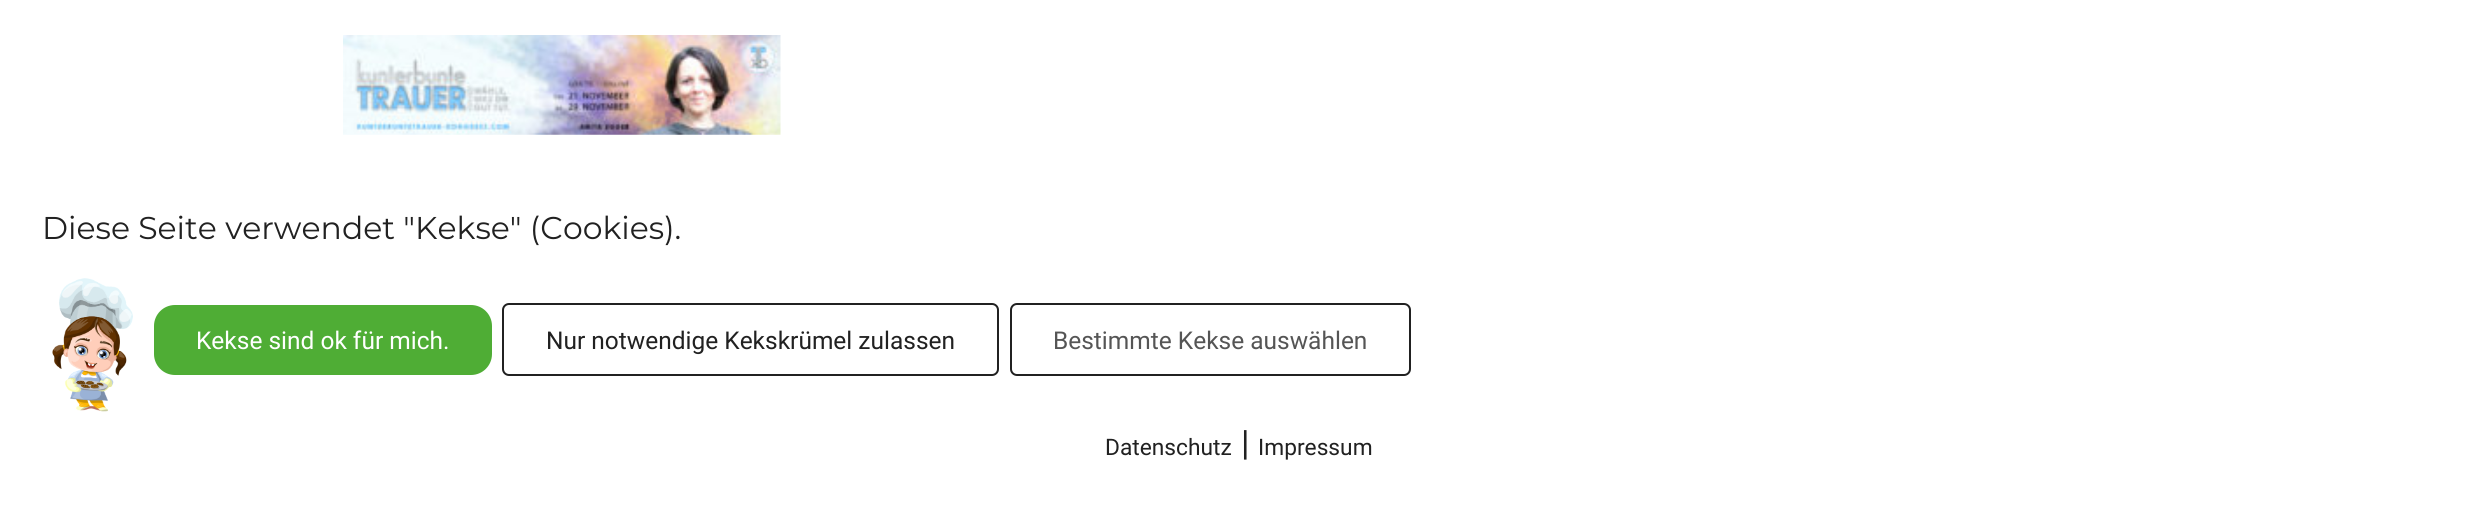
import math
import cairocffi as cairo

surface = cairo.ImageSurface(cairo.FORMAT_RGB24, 2477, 512)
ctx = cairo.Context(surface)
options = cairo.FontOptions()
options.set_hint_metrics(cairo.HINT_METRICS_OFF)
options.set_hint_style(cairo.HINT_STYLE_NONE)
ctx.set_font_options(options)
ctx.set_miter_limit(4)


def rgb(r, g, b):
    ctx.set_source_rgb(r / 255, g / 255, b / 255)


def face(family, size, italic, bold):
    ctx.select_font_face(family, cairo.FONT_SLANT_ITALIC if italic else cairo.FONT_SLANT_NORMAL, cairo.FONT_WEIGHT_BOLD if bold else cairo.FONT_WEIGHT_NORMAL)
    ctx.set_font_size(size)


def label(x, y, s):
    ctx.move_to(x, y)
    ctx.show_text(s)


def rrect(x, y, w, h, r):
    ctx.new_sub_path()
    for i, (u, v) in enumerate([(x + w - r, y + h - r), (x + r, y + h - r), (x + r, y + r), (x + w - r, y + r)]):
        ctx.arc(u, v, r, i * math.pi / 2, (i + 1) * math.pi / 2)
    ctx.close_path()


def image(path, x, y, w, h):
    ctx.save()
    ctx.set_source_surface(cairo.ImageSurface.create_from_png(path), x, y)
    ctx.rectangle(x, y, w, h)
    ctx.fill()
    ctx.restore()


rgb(255, 255, 255)
ctx.paint()
image('image0.png', 343, 35, 438, 100)
face('Montserrat', 31.5, 0, 0)
rgb(33, 33, 33)
label(42, 239, 'Diese Seite verwendet "Kekse" (Cookies).')
image('image1.png', 52, 278, 81, 134)
rgb(79, 173, 53)
rrect(154, 305, 338, 70, 21)
ctx.fill()
face('Roboto', 24.5, 0, 0)
rgb(255, 255, 255)
label(196, 349, 'Kekse sind ok für mich.')
rrect(503, 304, 495, 71, 6)
rgb(33, 33, 33)
ctx.stroke()
label(546, 349, 'Nur notwendige Kekskrümel zulassen')
rrect(1011, 304, 399, 71, 6)
ctx.stroke()
rgb(85, 85, 85)
label(1053, 349, 'Bestimmte Kekse auswählen')
face('Roboto', 22.75, 0, 0)
rgb(33, 33, 33)
label(1105, 455, 'Datenschutz')
face('Roboto', 35, 0, 0)
label(1241, 455, '|')
face('Roboto', 22.75, 0, 0)
label(1258, 455, 'Impressum')
surface.write_to_png('render.png')
